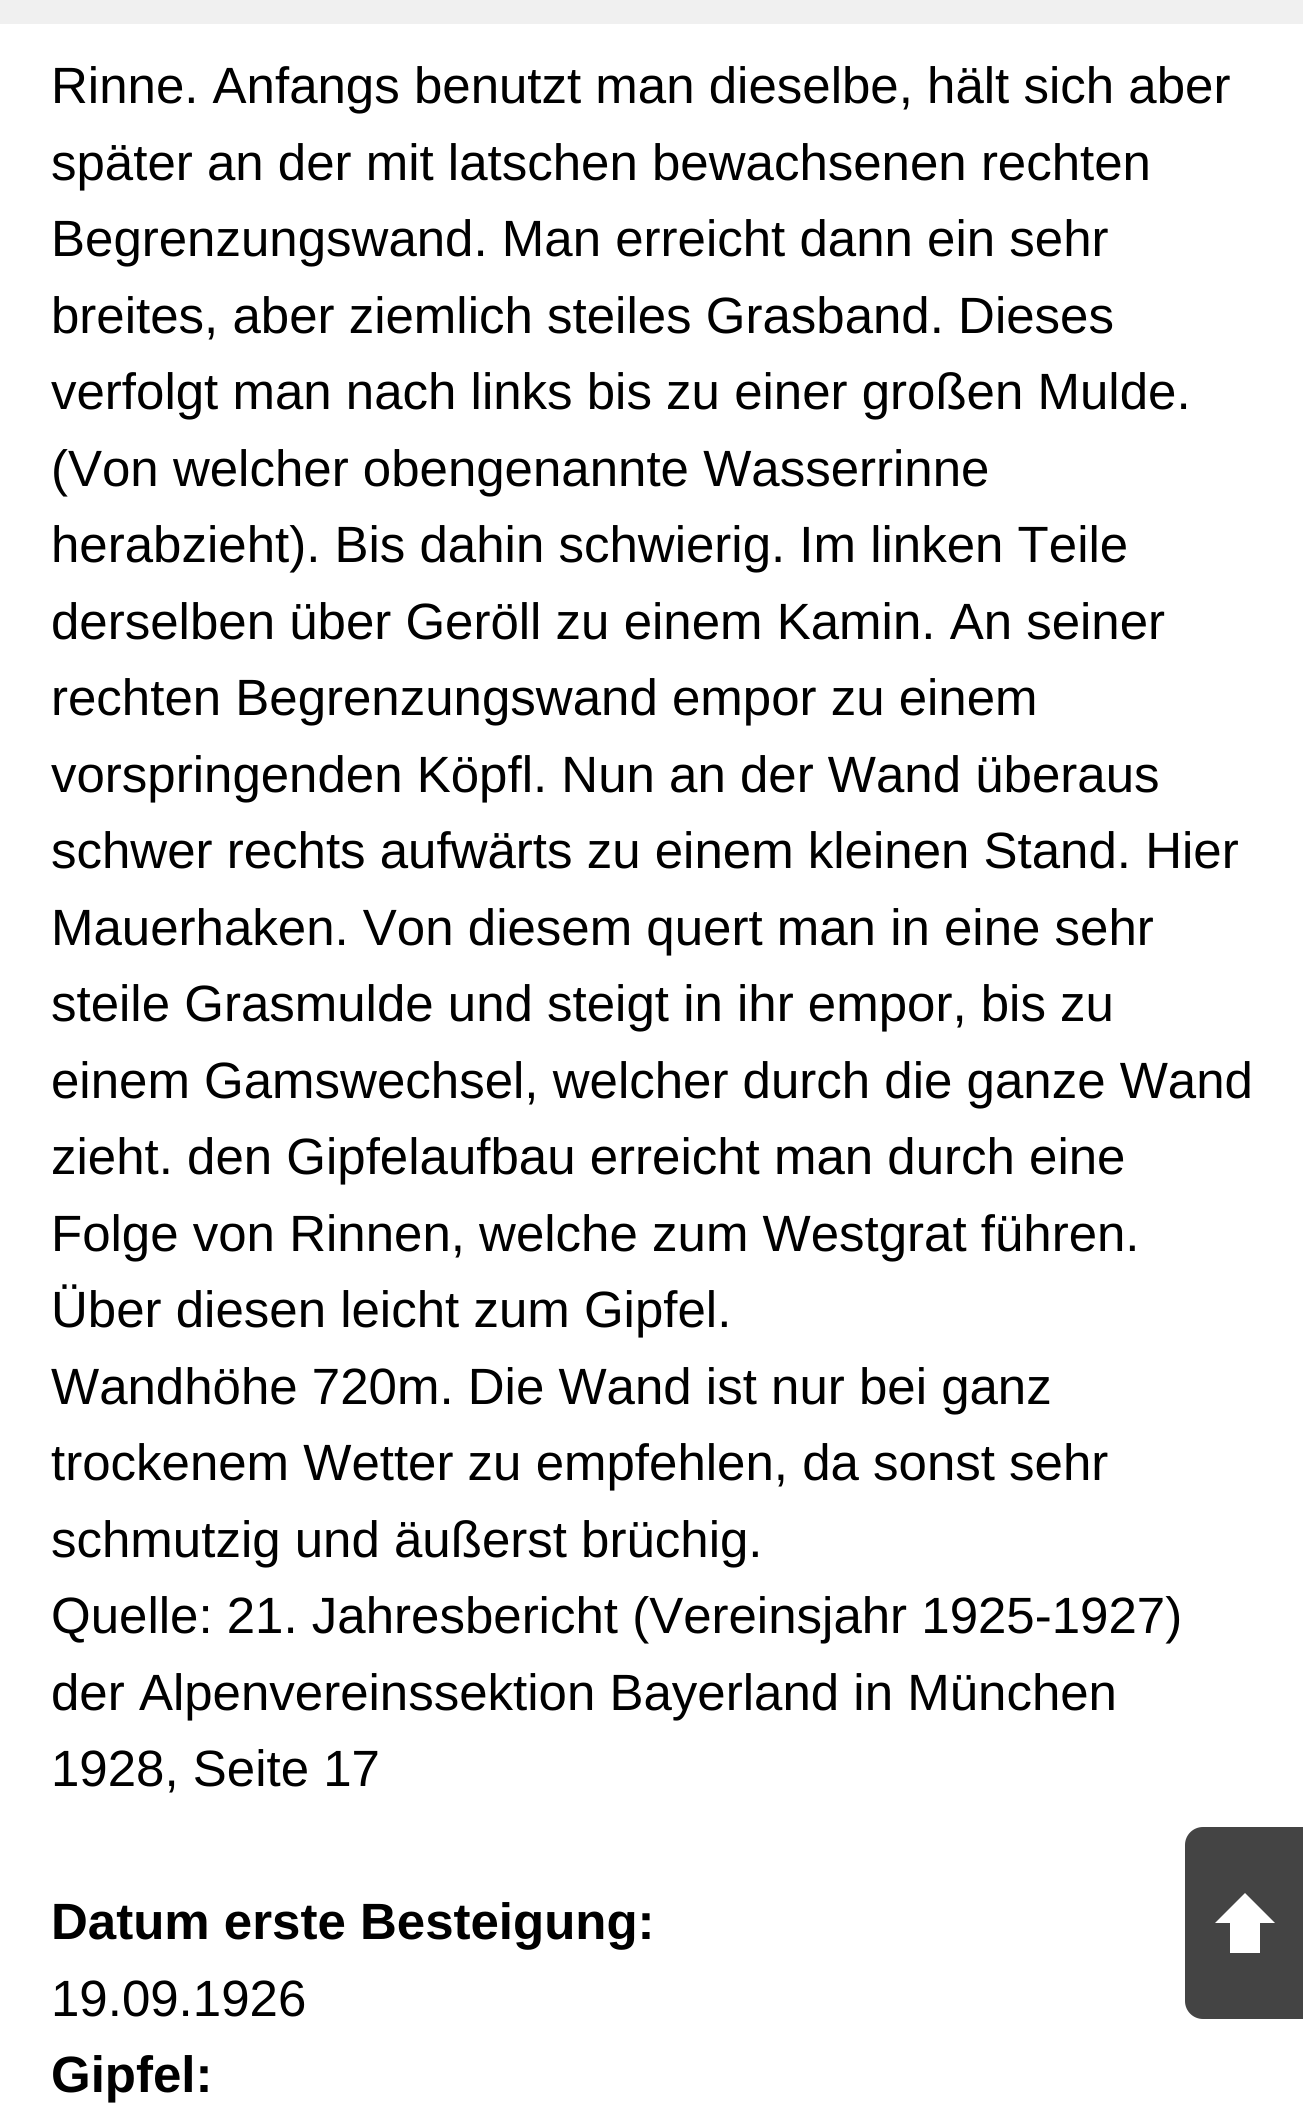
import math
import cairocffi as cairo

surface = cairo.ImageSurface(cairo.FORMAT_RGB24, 1303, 2113)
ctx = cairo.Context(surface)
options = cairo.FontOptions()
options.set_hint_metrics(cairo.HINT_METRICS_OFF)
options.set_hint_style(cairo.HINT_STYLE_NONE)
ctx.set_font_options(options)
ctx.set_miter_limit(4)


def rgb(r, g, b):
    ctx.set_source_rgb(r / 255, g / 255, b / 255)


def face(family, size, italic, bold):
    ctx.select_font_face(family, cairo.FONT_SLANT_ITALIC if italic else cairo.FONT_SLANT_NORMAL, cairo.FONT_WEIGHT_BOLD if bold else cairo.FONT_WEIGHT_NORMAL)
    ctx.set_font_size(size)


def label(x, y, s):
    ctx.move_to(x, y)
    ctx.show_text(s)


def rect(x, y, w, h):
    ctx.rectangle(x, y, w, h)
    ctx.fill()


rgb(255, 255, 255)
ctx.paint()
rgb(240, 240, 240)
rect(0, 0, 1303, 24)
face('Liberation Sans', 51, 0, 0)
rgb(0, 0, 0)
label(51, 103, 'Rinne. Anfangs benutzt man dieselbe, hält sich aber')
label(51, 180, 'später an der mit latschen bewachsenen rechten')
label(51, 256, 'Begrenzungswand. Man erreicht dann ein sehr')
label(51, 333, 'breites, aber ziemlich steiles Grasband. Dieses')
label(51, 409, 'verfolgt man nach links bis zu einer großen Mulde.')
label(51, 486, '(Von welcher obengenannte Wasserrinne')
label(51, 562, 'herabzieht). Bis dahin schwierig. Im linken Teile')
label(51, 639, 'derselben über Geröll zu einem Kamin. An seiner')
label(51, 715, 'rechten Begrenzungswand empor zu einem')
label(51, 792, 'vorspringenden Köpfl. Nun an der Wand überaus')
label(51, 868, 'schwer rechts aufwärts zu einem kleinen Stand. Hier')
label(51, 945, 'Mauerhaken. Von diesem quert man in eine sehr')
label(51, 1021, 'steile Grasmulde und steigt in ihr empor, bis zu')
label(51, 1098, 'einem Gamswechsel, welcher durch die ganze Wand')
label(51, 1174, 'zieht. den Gipfelaufbau erreicht man durch eine')
label(51, 1251, 'Folge von Rinnen, welche zum Westgrat führen.')
label(51, 1327, 'Über diesen leicht zum Gipfel.')
label(51, 1404, 'Wandhöhe 720m. Die Wand ist nur bei ganz')
label(51, 1480, 'trockenem Wetter zu empfehlen, da sonst sehr')
label(51, 1557, 'schmutzig und äußerst brüchig.')
label(51, 1633, 'Quelle: 21. Jahresbericht (Vereinsjahr 1925-1927)')
label(51, 1710, 'der Alpenvereinssektion Bayerland in München')
label(51, 1786, '1928, Seite 17')
face('Liberation Sans', 51, 0, 1)
label(51, 1939, 'Datum erste Besteigung:')
face('Liberation Sans', 51, 0, 0)
label(51, 2016, '19.09.1926')
face('Liberation Sans', 51, 0, 1)
label(51, 2092, 'Gipfel:')
rgb(68, 68, 68)
ctx.new_path()
ctx.move_to(1203, 1827)
ctx.line_to(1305, 1827)
ctx.line_to(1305, 2019)
ctx.line_to(1203, 2019)
ctx.curve_to(1193, 2019, 1185, 2011, 1185, 2001)
ctx.line_to(1185, 1845)
ctx.curve_to(1185, 1835, 1193, 1827, 1203, 1827)
ctx.close_path()
ctx.fill()
rgb(255, 255, 255)
ctx.new_path()
ctx.move_to(1275, 1923)
ctx.line_to(1215, 1923)
ctx.line_to(1245, 1893)
ctx.close_path()
ctx.fill()
rect(1230, 1923, 30, 30)
surface.write_to_png('render.png')
